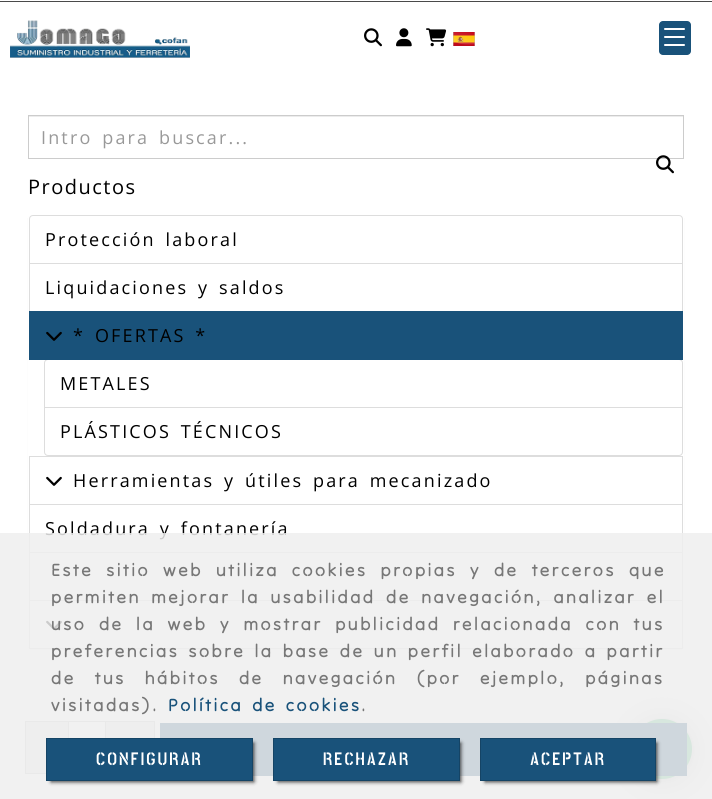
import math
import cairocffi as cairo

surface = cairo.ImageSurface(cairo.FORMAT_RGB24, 712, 799)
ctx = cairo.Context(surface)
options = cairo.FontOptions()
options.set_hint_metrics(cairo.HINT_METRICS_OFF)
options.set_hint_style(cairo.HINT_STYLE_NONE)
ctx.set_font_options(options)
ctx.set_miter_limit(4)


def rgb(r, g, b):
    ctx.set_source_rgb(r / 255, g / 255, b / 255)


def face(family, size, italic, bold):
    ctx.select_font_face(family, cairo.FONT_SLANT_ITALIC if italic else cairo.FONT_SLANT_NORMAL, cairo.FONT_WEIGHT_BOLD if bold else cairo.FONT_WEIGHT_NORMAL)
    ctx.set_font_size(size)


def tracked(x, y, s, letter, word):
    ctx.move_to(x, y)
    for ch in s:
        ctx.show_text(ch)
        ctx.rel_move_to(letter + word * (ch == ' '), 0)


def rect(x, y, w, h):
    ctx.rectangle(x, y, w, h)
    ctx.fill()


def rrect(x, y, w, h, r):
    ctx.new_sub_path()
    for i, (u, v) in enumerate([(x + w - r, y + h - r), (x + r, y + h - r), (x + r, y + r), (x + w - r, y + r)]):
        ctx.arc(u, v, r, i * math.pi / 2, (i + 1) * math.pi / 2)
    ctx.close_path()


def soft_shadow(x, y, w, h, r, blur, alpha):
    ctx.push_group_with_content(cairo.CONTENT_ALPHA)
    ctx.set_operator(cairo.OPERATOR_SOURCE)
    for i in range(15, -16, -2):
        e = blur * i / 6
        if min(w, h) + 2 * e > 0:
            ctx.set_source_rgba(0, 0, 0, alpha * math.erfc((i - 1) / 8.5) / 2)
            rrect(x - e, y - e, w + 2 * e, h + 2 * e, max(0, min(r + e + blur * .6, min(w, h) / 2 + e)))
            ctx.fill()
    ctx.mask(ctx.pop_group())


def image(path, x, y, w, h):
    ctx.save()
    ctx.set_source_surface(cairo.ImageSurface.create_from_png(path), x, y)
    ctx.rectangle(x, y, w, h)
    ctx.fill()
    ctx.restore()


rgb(255, 255, 255)
ctx.paint()
rgb(74, 74, 74)
rect(0, 1, 712, 1)
image('image0.png', 10, 20, 180, 38)
image('image1.png', 364, 28, 18, 19)
image('image2.png', 396, 28, 16, 19)
image('image3.png', 426, 28, 21, 19)
image('image4.png', 453, 32, 22, 14)
rgb(25, 82, 122)
rrect(659, 21, 32, 34, 4)
ctx.fill()
rgb(255, 255, 255)
rrect(664, 36, 21, 2, 1)
ctx.fill()
rrect(664, 28, 21, 2, 1)
ctx.fill()
rrect(664, 44, 21, 2, 1)
ctx.fill()
rgb(236, 236, 236)
rect(29, 116, 654, 1)
ctx.rectangle(28.5, 115.5, 655, 43)
rgb(204, 204, 204)
ctx.set_line_width(1)
ctx.stroke()
face('Open Sans', 18, 0, 0)
rgb(153, 153, 153)
tracked(41, 144, 'Intro para buscar...', 2.15, 3)
image('image5.png', 656, 155, 18, 19)
face('Open Sans', 20, 0, 0)
rgb(0, 0, 0)
tracked(28, 194, 'Productos', 1.5, 0)
rgb(0, 0, 0)
soft_shadow(28, 215, 656, 435, 4, 0.5, 0.05)
rgb(255, 255, 255)
rrect(28, 214, 656, 435, 4)
ctx.fill()
ctx.new_path()
ctx.move_to(33, 215.5)
ctx.line_to(679, 215.5)
ctx.curve_to(681, 215.5, 682.5, 217, 682.5, 219)
ctx.line_to(682.5, 263.5)
ctx.line_to(29.5, 263.5)
ctx.line_to(29.5, 219)
ctx.curve_to(29.5, 217, 31, 215.5, 33, 215.5)
ctx.close_path()
rgb(221, 221, 221)
ctx.stroke()
face('Open Sans', 18, 0, 0)
rgb(0, 0, 0)
tracked(45, 246, 'Protección laboral', 2.15, 3)
ctx.rectangle(29.5, 263.5, 653, 48)
rgb(221, 221, 221)
ctx.stroke()
rgb(0, 0, 0)
tracked(45, 294, 'Liquidaciones y saldos', 2.15, 3)
ctx.new_path()
ctx.move_to(48, 359.5)
ctx.line_to(679, 359.5)
ctx.curve_to(681, 359.5, 682.5, 361, 682.5, 363)
ctx.line_to(682.5, 407.5)
ctx.line_to(44.5, 407.5)
ctx.line_to(44.5, 363)
ctx.curve_to(44.5, 361, 46, 359.5, 48, 359.5)
ctx.close_path()
rgb(221, 221, 221)
ctx.stroke()
rgb(25, 82, 122)
rect(29, 311, 654, 49)
image('image6.png', 46, 331, 16, 10)
rgb(0, 0, 0)
tracked(73, 342, '* OFERTAS *', 2.15, 3)
tracked(60, 390, 'METALES', 2.15, 0)
rgb(255, 255, 255)
ctx.new_path()
ctx.move_to(44.5, 407.5)
ctx.line_to(682.5, 407.5)
ctx.line_to(682.5, 452)
ctx.curve_to(682.5, 454, 681, 455.5, 679, 455.5)
ctx.line_to(48, 455.5)
ctx.curve_to(46, 455.5, 44.5, 454, 44.5, 452)
ctx.close_path()
ctx.fill_preserve()
rgb(221, 221, 221)
ctx.stroke()
rgb(0, 0, 0)
tracked(60, 438, 'PLÁSTICOS TÉCNICOS', 2.15, 3)
ctx.rectangle(29.5, 456.5, 653, 48)
rgb(221, 221, 221)
ctx.stroke()
image('image7.png', 46, 476, 16, 10)
rgb(0, 0, 0)
tracked(73, 487, 'Herramientas y útiles para mecanizado', 2.15, 3)
ctx.rectangle(29.5, 504.5, 653, 48)
rgb(221, 221, 221)
ctx.stroke()
rgb(0, 0, 0)
tracked(45, 535, 'Soldadura y fontanería', 2.15, 3)
ctx.rectangle(29.5, 552.5, 653, 48)
rgb(221, 221, 221)
ctx.stroke()
ctx.rectangle(29.5, 600.5, 653, 48)
ctx.stroke()
image('image7.png', 46, 620, 16, 10)
rgb(238, 238, 238)
rect(26, 722, 42, 51)
rgb(204, 204, 204)
rect(25, 721, 43, 1)
rect(25, 773, 21, 1)
rect(25, 721, 1, 53)
ctx.rectangle(68.5, 721.5, 37, 52)
ctx.stroke()
rgb(238, 238, 238)
rect(106, 722, 48, 16)
rgb(204, 204, 204)
rect(106, 721, 49, 1)
rect(154, 721, 1, 17)
rgb(0, 0, 0)
soft_shadow(632, 721, 60, 60, 30, 16, 0.2)
soft_shadow(632, 720, 60, 60, 30, 3, 0.1)
rgb(78, 185, 128)
ctx.arc(662, 749, 30, 0, 2 * math.pi)
ctx.fill()
rgb(25, 82, 122)
rect(160, 723, 527, 53)
ctx.set_source_rgba(0.933, 0.933, 0.933, 0.85)
rect(0, 533, 712, 266)
face('Tilt Neon', 18, 0, 0)
rgb(119, 119, 119)
tracked(51, 576, 'Este sitio web utiliza cookies propias y de terceros que', 2.15, 7)
tracked(51, 603, 'permiten mejorar la usabilidad de navegación, analizar el', 2.15, 4.5)
tracked(51, 630, 'uso de la web y mostrar publicidad relacionada con tus', 2.15, 6.5)
tracked(51, 657, 'preferencias sobre la base de un perfil elaborado a partir', 2.15, 3.25)
tracked(51, 684, 'de tus hábitos de navegación (por ejemplo, páginas', 2.15, 13)
tracked(51, 711, 'visitadas).', 2.15, 0)
rgb(25, 82, 122)
tracked(168, 711, 'Política de cookies', 2.15, 3)
rgb(119, 119, 119)
tracked(361, 711, '.', 2.15, 0)
rgb(0, 0, 0)
soft_shadow(51, 743, 203, 39, 0, 2, 0.75)
rgb(25, 82, 122)
ctx.rectangle(46.5, 738.5, 206, 42)
ctx.fill_preserve()
rgb(21, 68, 101)
ctx.stroke()
face('Stick No Bills SemiBold', 18, 0, 0)
rgb(255, 255, 255)
tracked(96, 765, 'CONFIGURAR', 2.15, 0)
rgb(0, 0, 0)
soft_shadow(278, 743, 183, 39, 0, 2, 0.75)
rgb(25, 82, 122)
ctx.rectangle(273.5, 738.5, 186, 42)
ctx.fill_preserve()
rgb(21, 68, 101)
ctx.stroke()
rgb(255, 255, 255)
tracked(323, 765, 'RECHAZAR', 2.15, 0)
rgb(0, 0, 0)
soft_shadow(485, 743, 172, 39, 0, 2, 0.75)
rgb(25, 82, 122)
ctx.rectangle(480.5, 738.5, 175, 42)
ctx.fill_preserve()
rgb(21, 68, 101)
ctx.stroke()
rgb(255, 255, 255)
tracked(530, 765, 'ACEPTAR', 2.15, 0)
surface.write_to_png('render.png')
